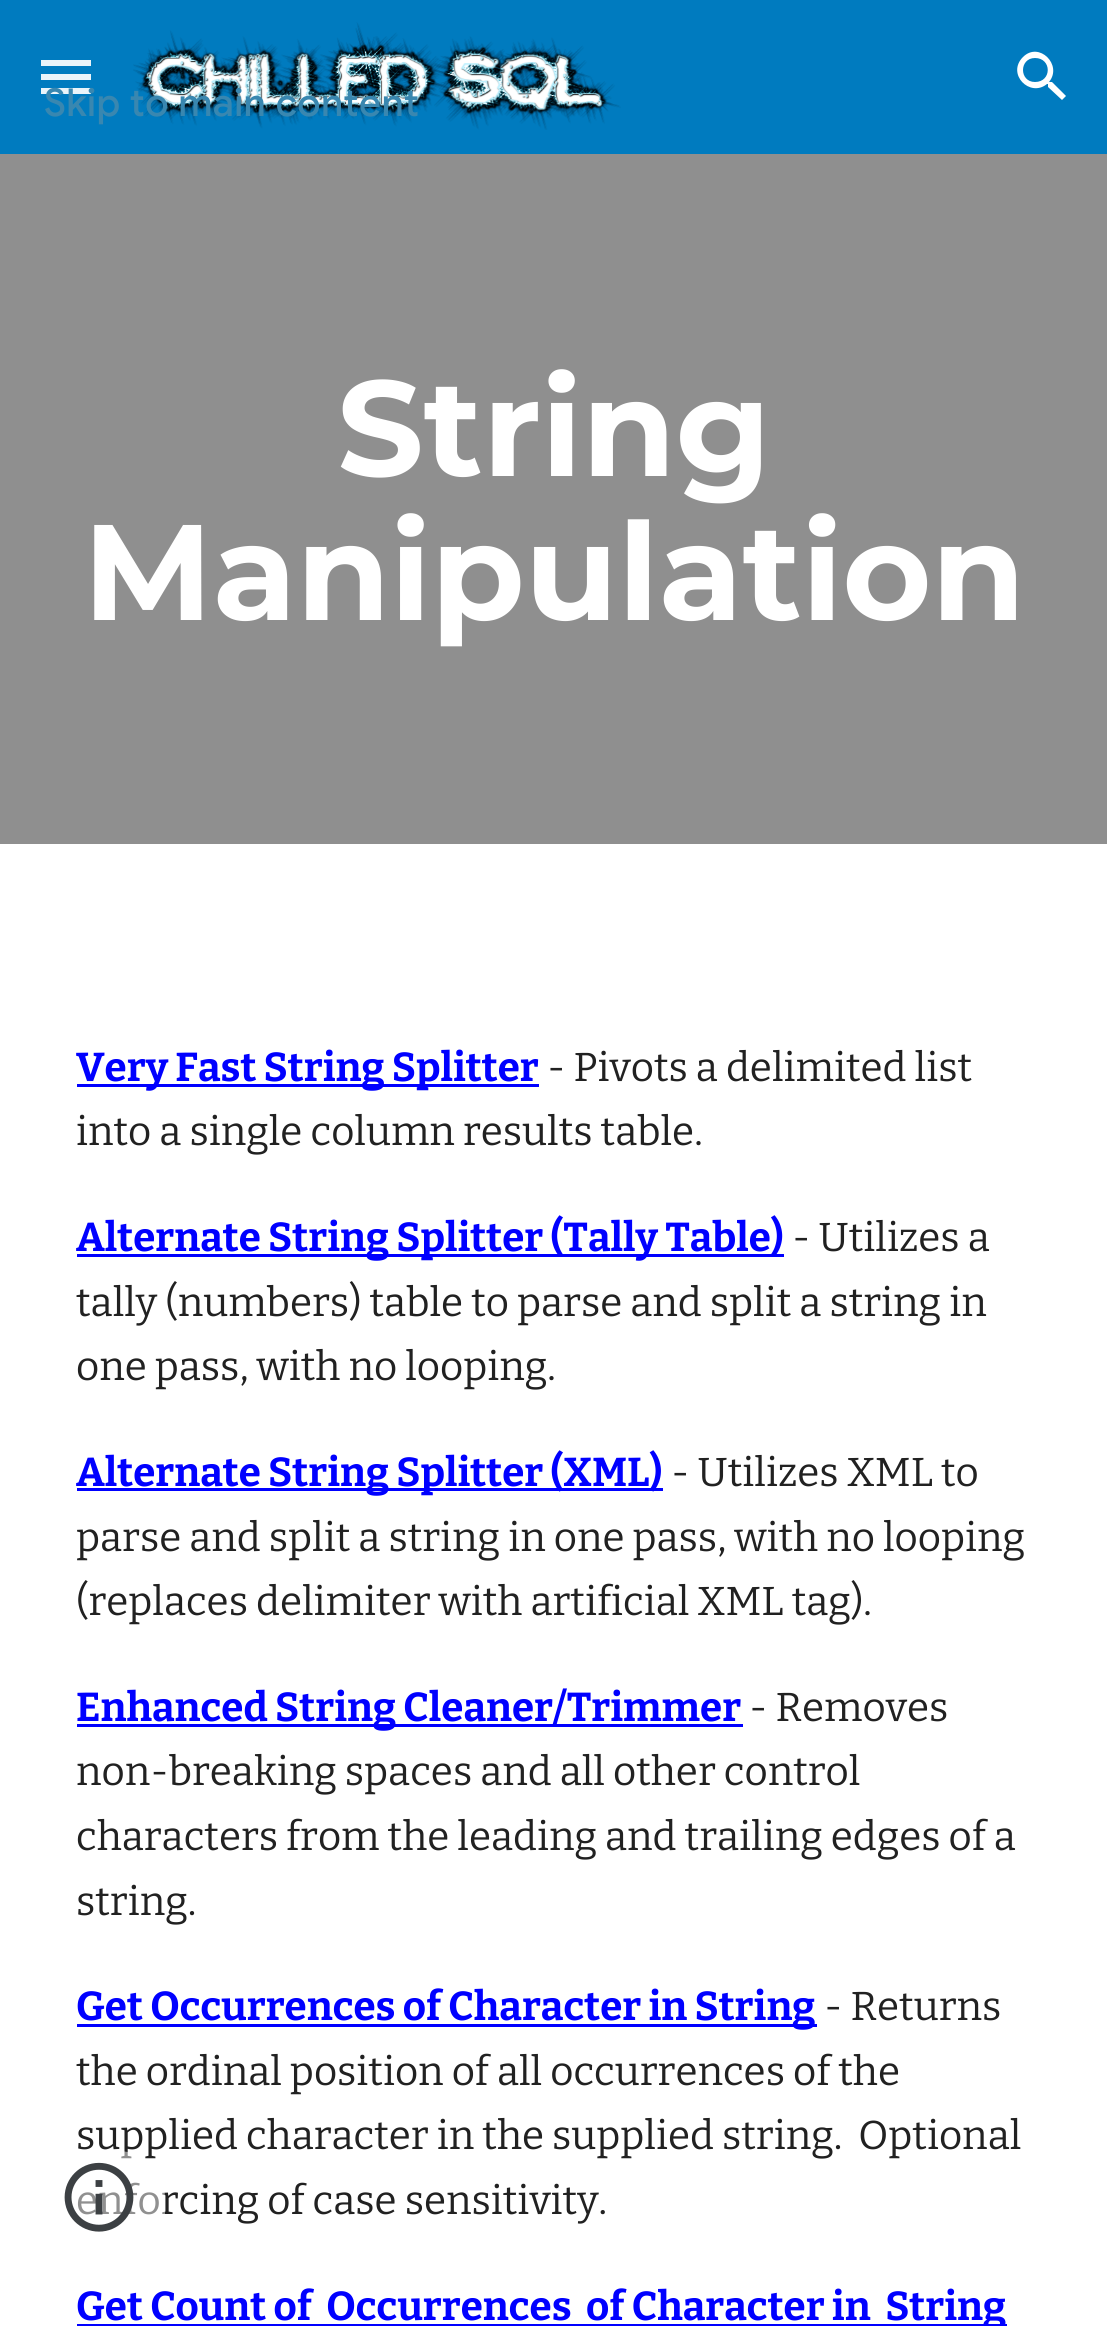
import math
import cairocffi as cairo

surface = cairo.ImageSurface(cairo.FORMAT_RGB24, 1107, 2326)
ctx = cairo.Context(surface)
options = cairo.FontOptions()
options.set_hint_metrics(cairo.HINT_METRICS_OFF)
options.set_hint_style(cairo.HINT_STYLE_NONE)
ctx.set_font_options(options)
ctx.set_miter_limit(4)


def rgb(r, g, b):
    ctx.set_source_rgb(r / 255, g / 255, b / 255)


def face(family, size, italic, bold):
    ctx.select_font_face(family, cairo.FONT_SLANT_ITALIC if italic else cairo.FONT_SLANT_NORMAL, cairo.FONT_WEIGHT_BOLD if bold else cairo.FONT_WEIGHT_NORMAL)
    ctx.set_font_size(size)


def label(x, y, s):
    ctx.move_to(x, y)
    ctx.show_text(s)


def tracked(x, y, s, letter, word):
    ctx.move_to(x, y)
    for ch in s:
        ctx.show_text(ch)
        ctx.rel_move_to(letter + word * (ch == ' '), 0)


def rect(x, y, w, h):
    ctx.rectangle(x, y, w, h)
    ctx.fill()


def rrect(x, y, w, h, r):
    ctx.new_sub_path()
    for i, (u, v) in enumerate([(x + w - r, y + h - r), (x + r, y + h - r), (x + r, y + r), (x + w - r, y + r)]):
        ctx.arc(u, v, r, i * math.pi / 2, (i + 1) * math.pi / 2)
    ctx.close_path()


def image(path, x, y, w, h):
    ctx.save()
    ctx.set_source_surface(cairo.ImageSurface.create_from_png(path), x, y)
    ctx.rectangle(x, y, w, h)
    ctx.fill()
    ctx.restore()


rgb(255, 255, 255)
ctx.paint()
rgb(0, 123, 191)
rect(0, 0, 1107, 154)
image('image0.png', 133, 22, 488, 108)
rgb(234, 244, 250)
rect(41, 88, 50, 6)
face('Google Sans Medium', 38.5, 0, 0)
rgb(57, 135, 176)
tracked(44, 116, 'Skip to main content', 0.4, 0)
rgb(234, 244, 250)
rect(41, 60, 50, 6)
rect(41, 74, 50, 6)
rgb(255, 255, 255)
ctx.new_path()
ctx.move_to(1052, 82)
ctx.line_to(1050, 82)
ctx.line_to(1049, 82)
ctx.curve_to(1063, 65, 1039, 41, 1023, 57)
ctx.curve_to(1006, 74, 1030, 98, 1047, 84)
ctx.line_to(1048, 84)
ctx.line_to(1048, 87)
ctx.line_to(1062, 100)
ctx.line_to(1066, 96)
ctx.close_path()
ctx.move_to(1035, 82)
ctx.curve_to(1019, 82, 1019, 58, 1035, 58)
ctx.curve_to(1052, 58, 1052, 82, 1035, 82)
ctx.close_path()
ctx.fill()
rgb(143, 143, 143)
rect(0, 154, 1107, 690)
face('Montserrat', 135.75, 0, 1)
rgb(255, 255, 255)
label(337, 476, 'String')
label(83, 620, 'Manipulation')
rgb(0, 0, 255)
rect(77, 1084, 462, 3)
face('Bitter', 40.3, 0, 1)
label(76, 1081, 'Very Fast String Splitter')
face('Bitter', 40.3, 0, 0)
rgb(33, 33, 33)
label(547, 1081, '- Pivots a delimited list')
label(76, 1145, 'into a single column results table.')
rgb(0, 0, 255)
rect(77, 1254, 707, 3)
face('Bitter', 40.3, 0, 1)
label(76, 1251, 'Alternate String Splitter (Tally Table)')
face('Bitter', 40.3, 0, 0)
rgb(33, 33, 33)
label(792, 1251, '- Utilizes a')
label(76, 1316, 'tally (numbers) table to parse and split a string in')
label(76, 1380, 'one pass, with no looping.')
rgb(0, 0, 255)
rect(77, 1488, 586, 3)
face('Bitter', 40.3, 0, 1)
label(76, 1486, 'Alternate String Splitter (XML)')
face('Bitter', 40.3, 0, 0)
rgb(33, 33, 33)
label(671, 1486, '- Utilizes XML to')
label(76, 1551, 'parse and split a string in one pass, with no looping')
label(76, 1615, '(replaces delimiter with artificial XML tag).')
rgb(0, 0, 255)
rect(77, 1724, 666, 3)
face('Bitter', 40.3, 0, 1)
label(76, 1721, 'Enhanced String Cleaner/Trimmer')
face('Bitter', 40.3, 0, 0)
rgb(33, 33, 33)
label(749, 1721, '- Removes')
label(76, 1785, 'non-breaking spaces and all other control')
label(76, 1850, 'characters from the leading and trailing edges of a')
label(76, 1915, 'string.')
rgb(0, 0, 255)
rect(77, 2024, 740, 3)
face('Bitter', 40.3, 0, 1)
label(76, 2020, 'Get Occurrences of Character in String')
face('Bitter', 40.3, 0, 0)
rgb(33, 33, 33)
label(824, 2020, '- Returns')
label(76, 2085, 'the ordinal position of all occurrences of the')
label(76, 2149, 'supplied character in the supplied string.  Optional')
label(76, 2214, 'enforcing of case sensitivity.')
rgb(0, 0, 255)
rect(77, 2324, 930, 2)
face('Bitter', 40.3, 0, 1)
label(76, 2320, 'Get Count of  Occurrences  of Character in  String')
ctx.set_source_rgba(1, 1, 1, 0.5)
rrect(33, 2151, 132, 132, 47)
ctx.fill()
image('image1.png', 64, 2162, 70, 70)
surface.write_to_png('render.png')
